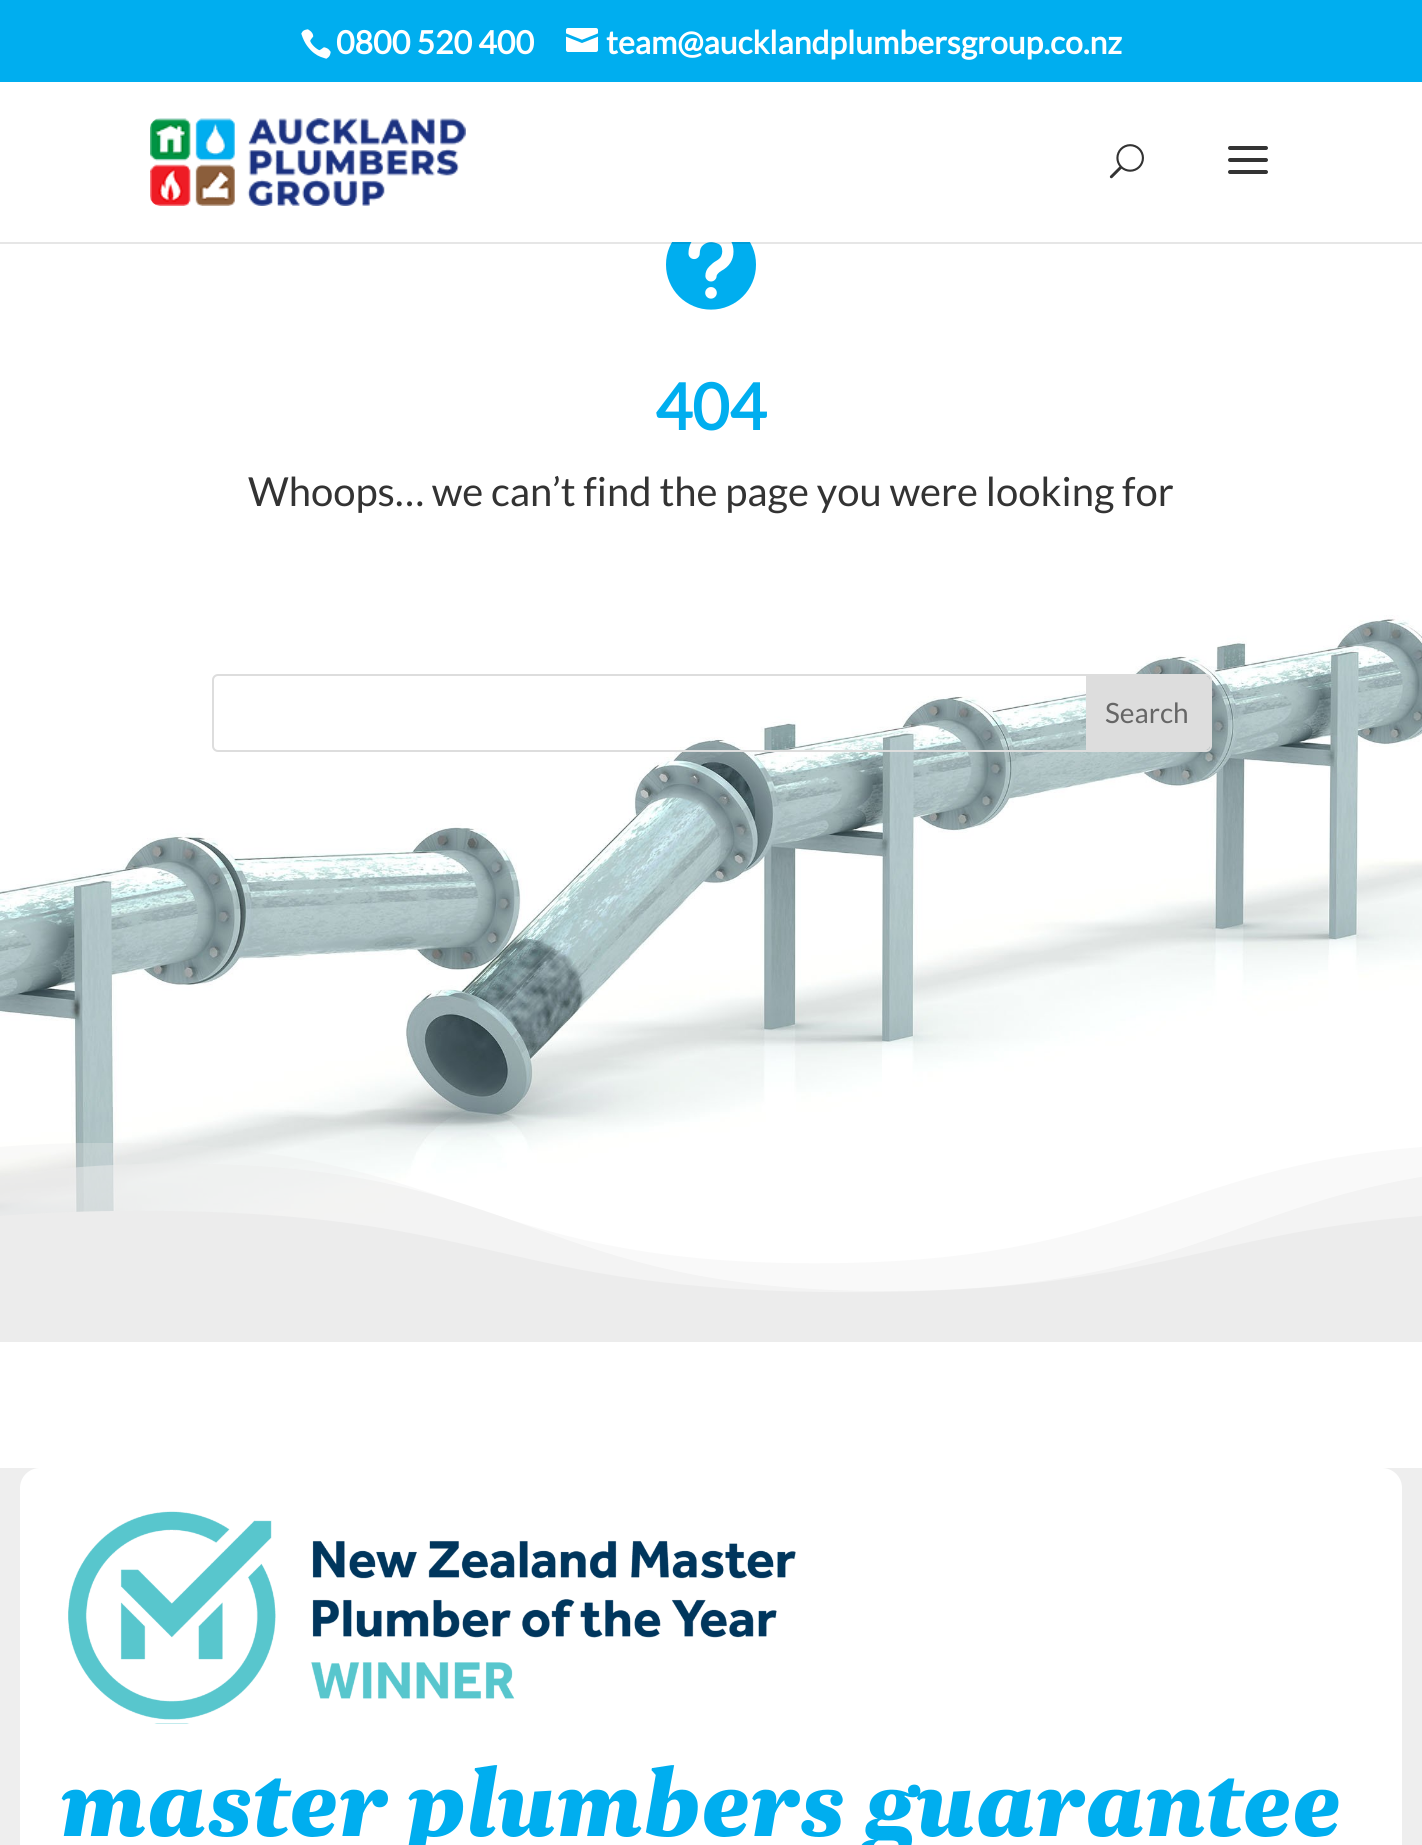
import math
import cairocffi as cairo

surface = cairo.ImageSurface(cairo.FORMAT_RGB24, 1422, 1845)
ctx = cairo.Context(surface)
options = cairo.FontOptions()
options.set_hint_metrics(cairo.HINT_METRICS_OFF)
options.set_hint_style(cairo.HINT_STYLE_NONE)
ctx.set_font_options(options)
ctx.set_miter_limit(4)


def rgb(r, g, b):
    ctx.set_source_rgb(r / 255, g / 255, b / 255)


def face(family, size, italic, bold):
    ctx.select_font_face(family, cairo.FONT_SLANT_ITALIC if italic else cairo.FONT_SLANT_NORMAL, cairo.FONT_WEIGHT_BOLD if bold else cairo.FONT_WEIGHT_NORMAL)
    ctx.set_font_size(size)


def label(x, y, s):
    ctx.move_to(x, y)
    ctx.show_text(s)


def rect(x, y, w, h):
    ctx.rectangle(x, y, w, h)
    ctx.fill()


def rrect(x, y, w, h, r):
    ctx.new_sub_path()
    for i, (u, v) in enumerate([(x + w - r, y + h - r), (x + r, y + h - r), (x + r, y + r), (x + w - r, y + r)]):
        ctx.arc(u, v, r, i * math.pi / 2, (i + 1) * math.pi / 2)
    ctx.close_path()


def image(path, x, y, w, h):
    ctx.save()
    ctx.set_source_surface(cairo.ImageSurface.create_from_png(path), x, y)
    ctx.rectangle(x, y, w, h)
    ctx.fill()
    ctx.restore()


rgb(255, 255, 255)
ctx.paint()
rgb(0, 174, 239)
rect(0, 0, 1422, 82)
image('image0.png', 301, 29, 30, 30)
face('Lato', 32, 0, 1)
rgb(255, 255, 255)
label(336, 54, '0800 520 400')
image('image1.png', 566, 28, 32, 24)
label(606, 54, 'team@aucklandplumbersgroup.co.nz')
image('image6.png', 666, 242, 90, 68)
ctx.set_source_rgba(0, 0, 0, 0.1)
rect(0, 242, 1422, 2)
image('image2.png', 150, 118, 316, 88)
image('image3.png', 1109, 144, 35, 35)
image('image4.png', 1228, 146, 40, 28)
image('image5.png', 0, 615, 1422, 642)
face('Lato', 64, 0, 1)
rgb(0, 174, 239)
label(655, 430, '404')
face('Lato', 40, 0, 0)
rgb(51, 51, 51)
label(248, 506, 'Whoops… we can’t find the page you were looking for')
rrect(213, 675, 998, 76, 5)
rgb(221, 221, 221)
ctx.stroke()
ctx.new_path()
ctx.move_to(1086, 676)
ctx.line_to(1206, 676)
ctx.curve_to(1208, 676, 1210, 678, 1210, 680)
ctx.line_to(1210, 746)
ctx.curve_to(1210, 748, 1208, 750, 1206, 750)
ctx.line_to(1086, 750)
ctx.close_path()
ctx.fill()
face('Lato', 28, 0, 0)
rgb(102, 102, 102)
label(1105, 723, 'Search')
image('image7.png', 0, 1143, 1422, 199)
rgb(238, 238, 238)
rect(0, 1468, 1422, 377)
rgb(255, 255, 255)
rrect(20, 1468, 1382, 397, 20)
ctx.fill()
image('image8.png', 68, 1511, 728, 213)
image('image9.png', 61, 1765, 1278, 80)
surface.write_to_png('render.png')
